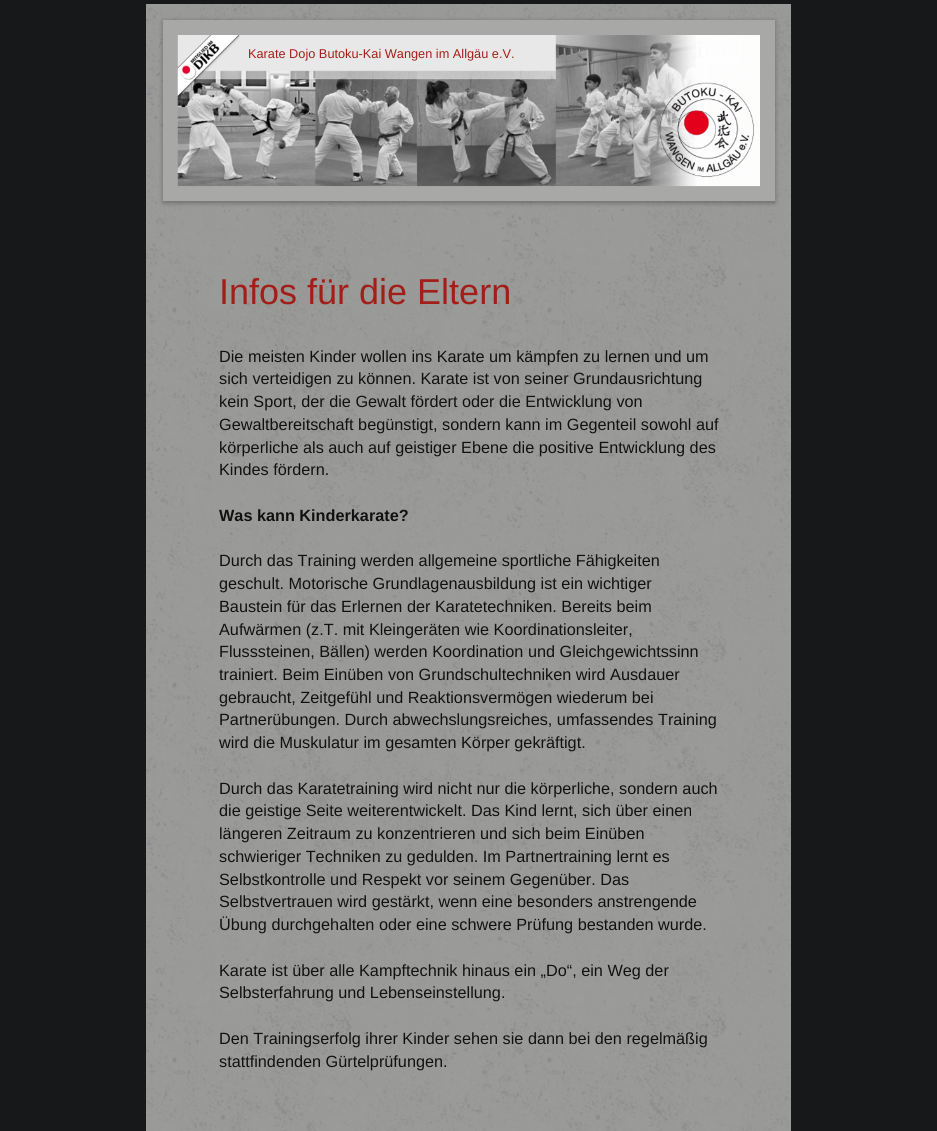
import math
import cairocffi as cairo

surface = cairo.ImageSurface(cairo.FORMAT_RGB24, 937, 1131)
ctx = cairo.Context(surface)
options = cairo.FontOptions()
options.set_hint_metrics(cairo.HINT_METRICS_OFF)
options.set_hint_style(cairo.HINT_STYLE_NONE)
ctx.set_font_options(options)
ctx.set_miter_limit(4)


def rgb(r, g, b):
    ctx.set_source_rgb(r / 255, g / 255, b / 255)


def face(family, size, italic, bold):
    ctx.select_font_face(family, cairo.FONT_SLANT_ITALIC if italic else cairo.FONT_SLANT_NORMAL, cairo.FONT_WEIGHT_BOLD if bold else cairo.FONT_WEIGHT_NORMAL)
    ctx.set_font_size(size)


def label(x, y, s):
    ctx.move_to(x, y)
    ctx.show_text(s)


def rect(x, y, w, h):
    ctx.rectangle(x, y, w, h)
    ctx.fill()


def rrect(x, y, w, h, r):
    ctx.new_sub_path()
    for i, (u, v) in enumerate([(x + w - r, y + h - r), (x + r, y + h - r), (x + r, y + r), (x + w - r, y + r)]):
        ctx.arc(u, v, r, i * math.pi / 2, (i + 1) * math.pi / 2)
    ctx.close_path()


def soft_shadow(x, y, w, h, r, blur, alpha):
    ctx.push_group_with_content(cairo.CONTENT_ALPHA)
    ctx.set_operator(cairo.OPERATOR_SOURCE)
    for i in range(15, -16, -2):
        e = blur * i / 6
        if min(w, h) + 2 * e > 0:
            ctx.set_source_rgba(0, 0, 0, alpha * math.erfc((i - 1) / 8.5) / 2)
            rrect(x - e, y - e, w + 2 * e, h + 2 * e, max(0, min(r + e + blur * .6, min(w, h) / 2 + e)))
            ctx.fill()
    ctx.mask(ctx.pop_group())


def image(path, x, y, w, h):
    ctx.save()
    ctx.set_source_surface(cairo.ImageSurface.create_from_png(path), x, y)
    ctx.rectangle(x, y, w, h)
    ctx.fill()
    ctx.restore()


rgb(23, 24, 26)
ctx.paint()
rgb(155, 156, 154)
rect(146, 4, 645, 1127)
image('image0.png', 146, 4, 645, 1127)
rgb(0, 0, 0)
soft_shadow(163, 21, 612, 182, 0, 2.5, 0.3)
ctx.rectangle(170.5, 27.5, 597, 166)
rgb(168, 169, 167)
ctx.set_line_width(15)
ctx.stroke()
rgb(204, 204, 204)
rect(178, 35, 530, 151)
image('image1.png', 177, 35, 583, 152)
face('Liberation Sans', 12.75, 0, 0)
rgb(161, 31, 24)
label(248, 58, 'Karate Dojo Butoku-Kai Wangen im Allgäu e.V.')
face('Liberation Sans', 36, 0, 0)
label(219, 304, 'Infos für die Eltern')
face('Liberation Sans', 16.25, 0, 0)
rgb(17, 17, 17)
label(219, 362, 'Die meisten Kinder wollen ins Karate um kämpfen zu lernen und um')
label(219, 384, 'sich verteidigen zu können. Karate ist von seiner Grundausrichtung')
label(219, 407, 'kein Sport, der die Gewalt fördert oder die Entwicklung von')
label(219, 430, 'Gewaltbereitschaft begünstigt, sondern kann im Gegenteil sowohl auf')
label(219, 453, 'körperliche als auch auf geistiger Ebene die positive Entwicklung des')
label(219, 475, 'Kindes fördern.')
face('Liberation Sans', 16.25, 0, 1)
label(219, 521, 'Was kann Kinderkarate?')
face('Liberation Sans', 16.25, 0, 0)
label(219, 566, 'Durch das Training werden allgemeine sportliche Fähigkeiten')
label(219, 589, 'geschult. Motorische Grundlagenausbildung ist ein wichtiger')
label(219, 612, 'Baustein für das Erlernen der Karatetechniken. Bereits beim')
label(219, 635, 'Aufwärmen (z.T. mit Kleingeräten wie Koordinationsleiter,')
label(219, 657, 'Flusssteinen, Bällen) werden Koordination und Gleichgewichtssinn')
label(219, 680, 'trainiert. Beim Einüben von Grundschultechniken wird Ausdauer')
label(219, 703, 'gebraucht, Zeitgefühl und Reaktionsvermögen wiederum bei')
label(219, 725, 'Partnerübungen. Durch abwechslungsreiches, umfassendes Training')
label(219, 748, 'wird die Muskulatur im gesamten Körper gekräftigt.')
label(219, 794, 'Durch das Karatetraining wird nicht nur die körperliche, sondern auch')
label(219, 816, 'die geistige Seite weiterentwickelt. Das Kind lernt, sich über einen')
label(219, 839, 'längeren Zeitraum zu konzentrieren und sich beim Einüben')
label(219, 862, 'schwieriger Techniken zu gedulden. Im Partnertraining lernt es')
label(219, 885, 'Selbstkontrolle und Respekt vor seinem Gegenüber. Das')
label(219, 907, 'Selbstvertrauen wird gestärkt, wenn eine besonders anstrengende')
label(219, 930, 'Übung durchgehalten oder eine schwere Prüfung bestanden wurde.')
label(219, 976, 'Karate ist über alle Kampftechnik hinaus ein „Do“, ein Weg der')
label(219, 998, 'Selbsterfahrung und Lebenseinstellung.')
label(219, 1044, 'Den Trainingserfolg ihrer Kinder sehen sie dann bei den regelmäßig')
label(219, 1067, 'stattfindenden Gürtelprüfungen.')
surface.write_to_png('render.png')
